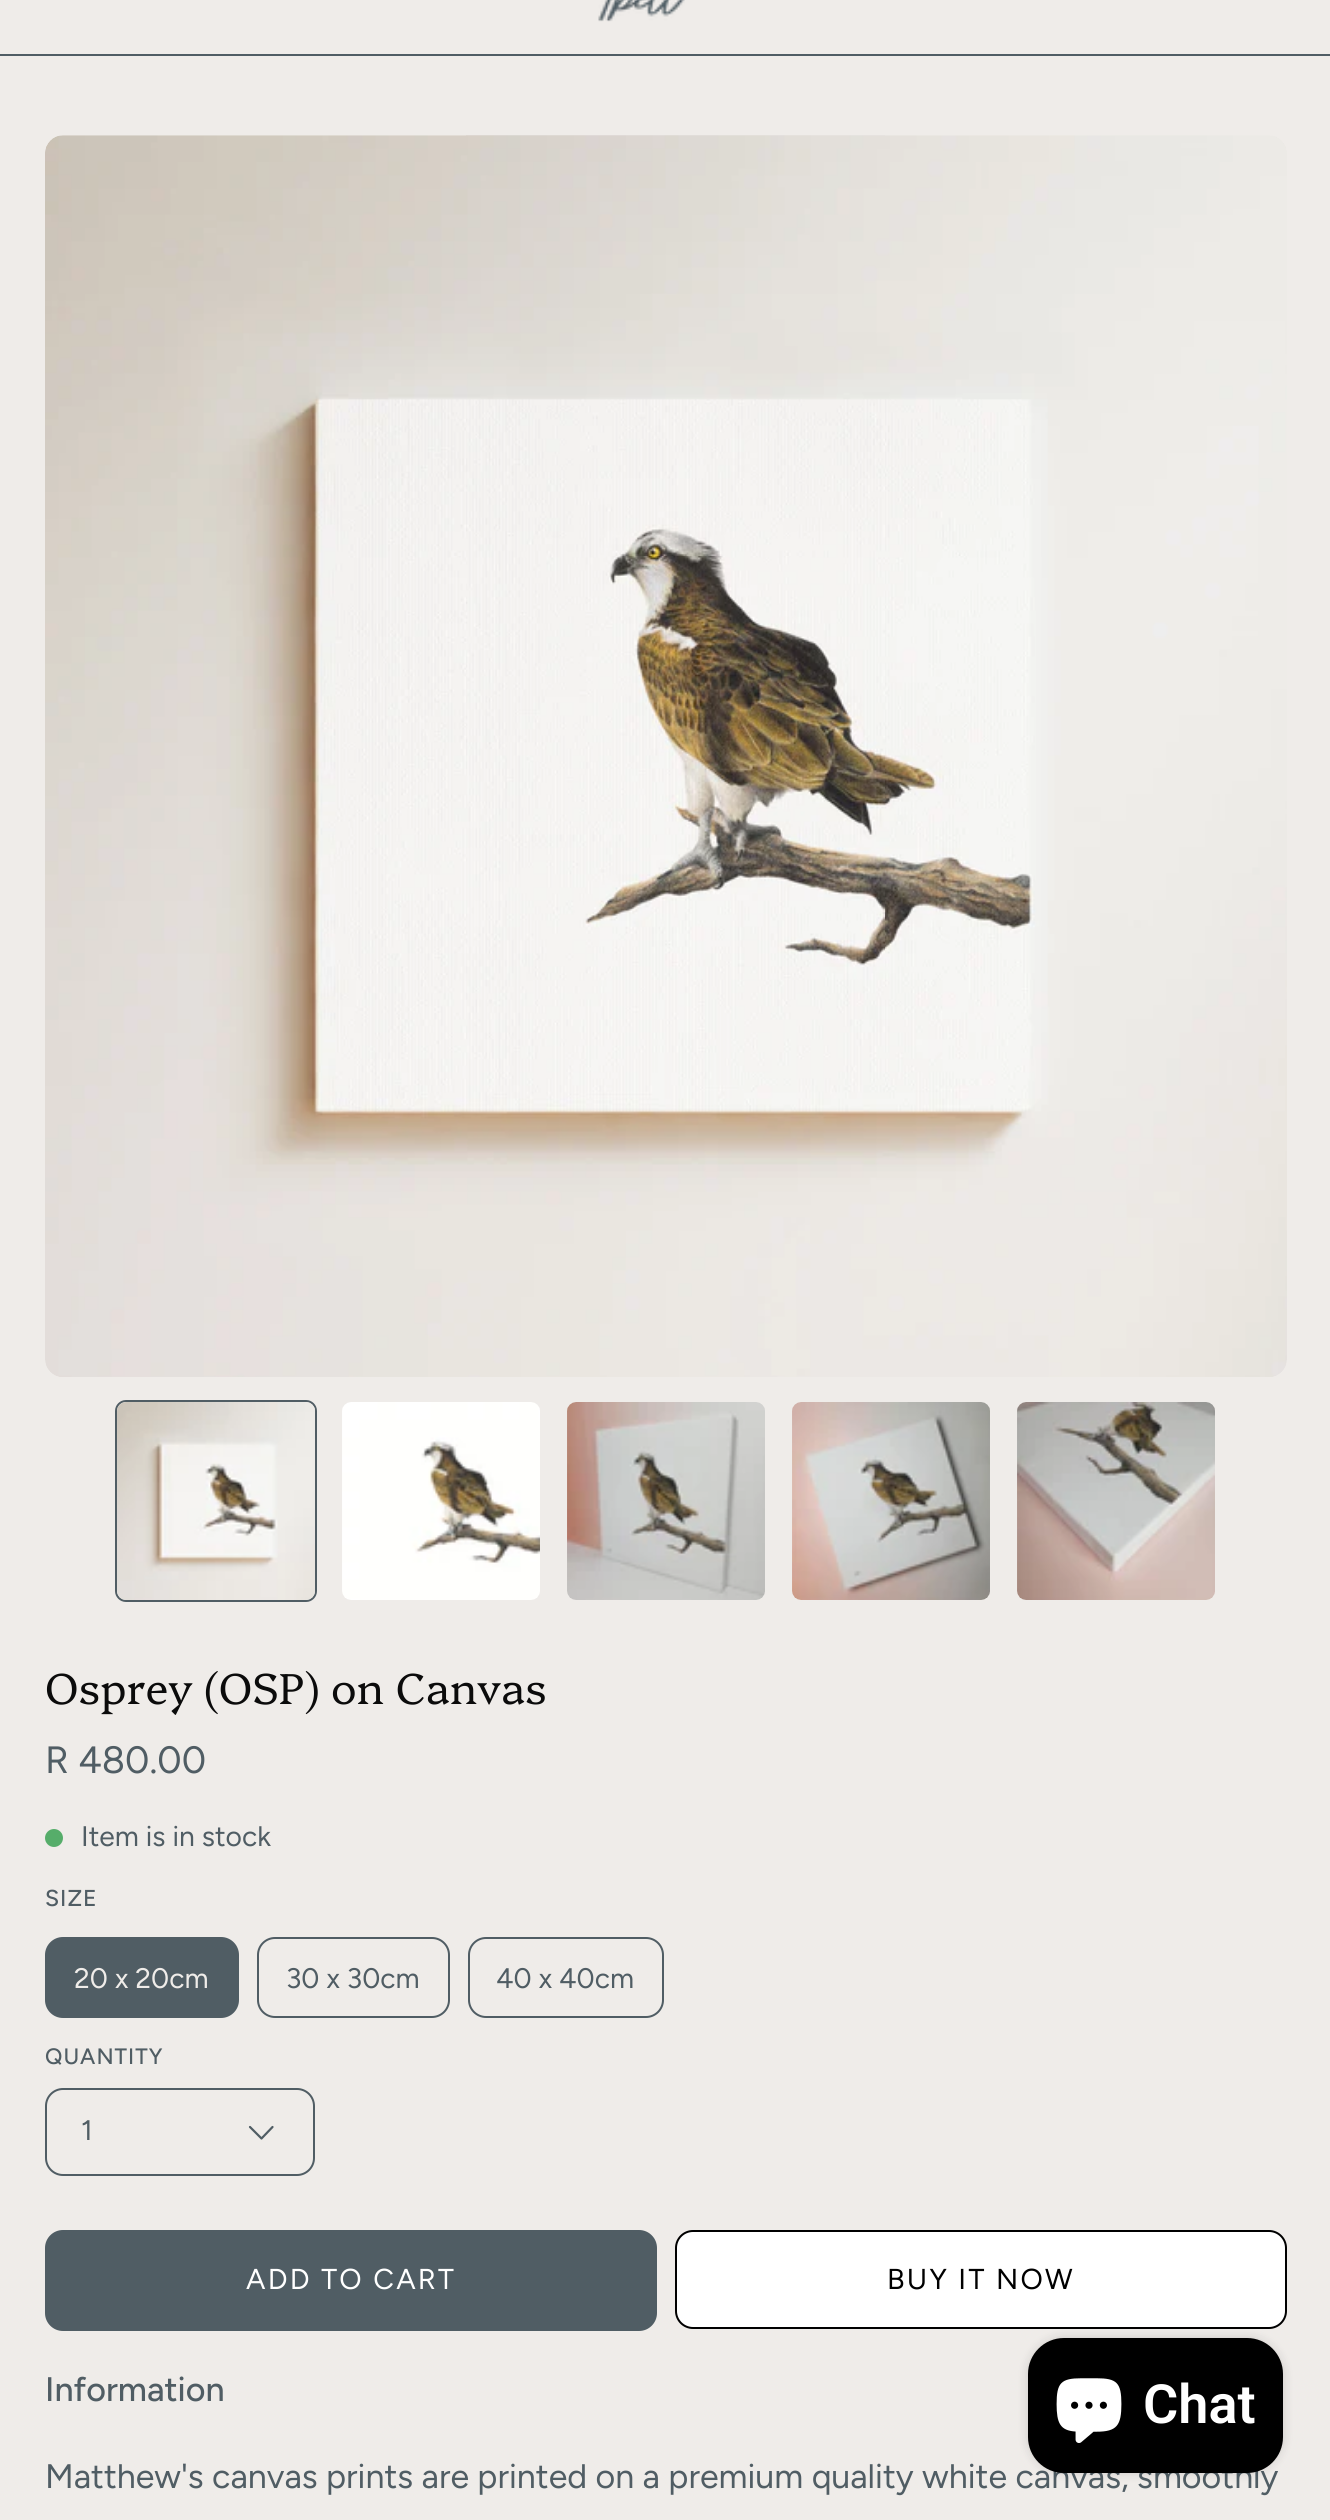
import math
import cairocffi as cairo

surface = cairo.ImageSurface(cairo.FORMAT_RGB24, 1330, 2520)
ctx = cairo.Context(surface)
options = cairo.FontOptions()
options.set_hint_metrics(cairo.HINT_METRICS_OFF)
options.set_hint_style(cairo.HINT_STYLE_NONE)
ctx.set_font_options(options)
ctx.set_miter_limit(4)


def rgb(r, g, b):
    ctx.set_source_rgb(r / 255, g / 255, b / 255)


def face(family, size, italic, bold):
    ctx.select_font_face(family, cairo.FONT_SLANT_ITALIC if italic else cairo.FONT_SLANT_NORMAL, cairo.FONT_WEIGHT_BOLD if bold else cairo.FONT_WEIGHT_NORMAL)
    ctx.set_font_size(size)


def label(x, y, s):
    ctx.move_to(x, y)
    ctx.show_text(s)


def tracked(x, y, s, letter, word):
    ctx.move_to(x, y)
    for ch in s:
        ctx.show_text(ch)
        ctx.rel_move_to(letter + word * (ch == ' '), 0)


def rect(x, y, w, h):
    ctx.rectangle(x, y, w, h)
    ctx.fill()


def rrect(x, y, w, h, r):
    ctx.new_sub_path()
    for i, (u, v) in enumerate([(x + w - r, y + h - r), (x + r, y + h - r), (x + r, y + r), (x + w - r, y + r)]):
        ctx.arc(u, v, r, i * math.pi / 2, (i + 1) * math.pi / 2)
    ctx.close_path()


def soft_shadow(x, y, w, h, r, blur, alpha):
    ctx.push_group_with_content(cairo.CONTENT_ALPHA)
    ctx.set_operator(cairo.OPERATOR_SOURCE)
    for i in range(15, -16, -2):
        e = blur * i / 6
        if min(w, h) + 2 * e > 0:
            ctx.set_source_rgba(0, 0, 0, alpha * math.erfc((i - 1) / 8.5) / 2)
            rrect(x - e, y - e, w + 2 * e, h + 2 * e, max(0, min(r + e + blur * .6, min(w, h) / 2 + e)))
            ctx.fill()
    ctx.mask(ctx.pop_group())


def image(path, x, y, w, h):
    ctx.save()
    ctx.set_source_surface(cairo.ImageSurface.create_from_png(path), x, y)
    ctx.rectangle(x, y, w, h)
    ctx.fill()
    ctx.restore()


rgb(239, 236, 233)
ctx.paint()
image('image0.png', 598, 0, 87, 22)
rgb(80, 93, 100)
rect(0, 54, 1330, 2)
image('image1.png', 45, 135, 1242, 1242)
rrect(116, 1401, 200, 200, 10)
ctx.stroke()
image('image2.png', 117, 1402, 198, 198)
image('image3.png', 342, 1402, 198, 198)
image('image4.png', 567, 1402, 198, 198)
image('image5.png', 792, 1402, 198, 198)
image('image6.png', 1017, 1402, 198, 198)
face('Platypi Light', 43.25, 0, 0)
rgb(11, 11, 11)
label(45, 1704, 'Osprey (OSP) on Canvas')
face('Figtree', 38, 0, 0)
rgb(80, 93, 100)
label(45, 1773, 'R 480.00')
rgb(86, 173, 106)
ctx.new_path()
ctx.arc(54, 1838, 9, 0, 2 * math.pi)
ctx.fill()
face('Figtree', 28.25, 0, 0)
rgb(80, 93, 100)
label(81, 1846, 'Item is in stock')
face('Figtree Medium', 23, 0, 0)
tracked(45, 1906, 'SIZE', 1, 0)
rrect(46, 1938, 192, 79, 17)
ctx.fill_preserve()
ctx.stroke()
face('Figtree', 28.25, 0, 0)
rgb(239, 236, 233)
label(74, 1988, '20 x 20cm')
rrect(258, 1938, 191, 79, 17)
rgb(80, 93, 100)
ctx.stroke()
label(286, 1988, '30 x 30cm')
rrect(469, 1938, 194, 79, 17)
ctx.stroke()
label(496, 1988, '40 x 40cm')
face('Figtree Medium', 22.25, 0, 0)
tracked(45, 2064, 'QUANTITY', 1, 0)
rrect(46, 2089, 268, 86, 17)
ctx.stroke()
face('Figtree', 28.25, 0, 0)
tracked(81, 2140, '1', 1, 0)
ctx.new_path()
ctx.move_to(272.5, 2127)
ctx.line_to(261.5, 2138.5)
ctx.line_to(250, 2127)
ctx.set_line_width(2.2)
ctx.set_line_cap(cairo.LINE_CAP_ROUND)
ctx.set_line_join(cairo.LINE_JOIN_ROUND)
ctx.stroke()
rrect(45, 2230, 612, 101, 18)
ctx.fill()
face('Figtree', 28.75, 0, 0)
rgb(255, 255, 255)
tracked(246, 2289, 'ADD TO CART', 2.25, 0)
rrect(676, 2231, 610, 97, 17)
ctx.fill_preserve()
rgb(0, 0, 0)
ctx.set_line_width(2)
ctx.set_line_cap(cairo.LINE_CAP_BUTT)
ctx.set_line_join(cairo.LINE_JOIN_MITER)
ctx.stroke()
tracked(887, 2289, 'BUY IT NOW', 2.25, 0)
face('Figtree Medium', 34, 0, 0)
rgb(80, 93, 100)
label(45, 2401, 'Information')
face('Figtree', 34, 0, 0)
label(45, 2488, 'Matthew\'s canvas prints are printed on a premium quality white canvas, smoothly')
rgb(0, 0, 0)
soft_shadow(1028, 2338, 255, 135, 36, 5.5, 0.15)
rgb(0, 0, 0)
rrect(1028, 2338, 255, 135, 36)
ctx.fill()
image('image7.png', 1056, 2378, 66, 65)
face('Roboto SemiBold', 54, 0, 0)
rgb(255, 255, 255)
label(1143, 2423, 'Chat')
surface.write_to_png('render.png')
